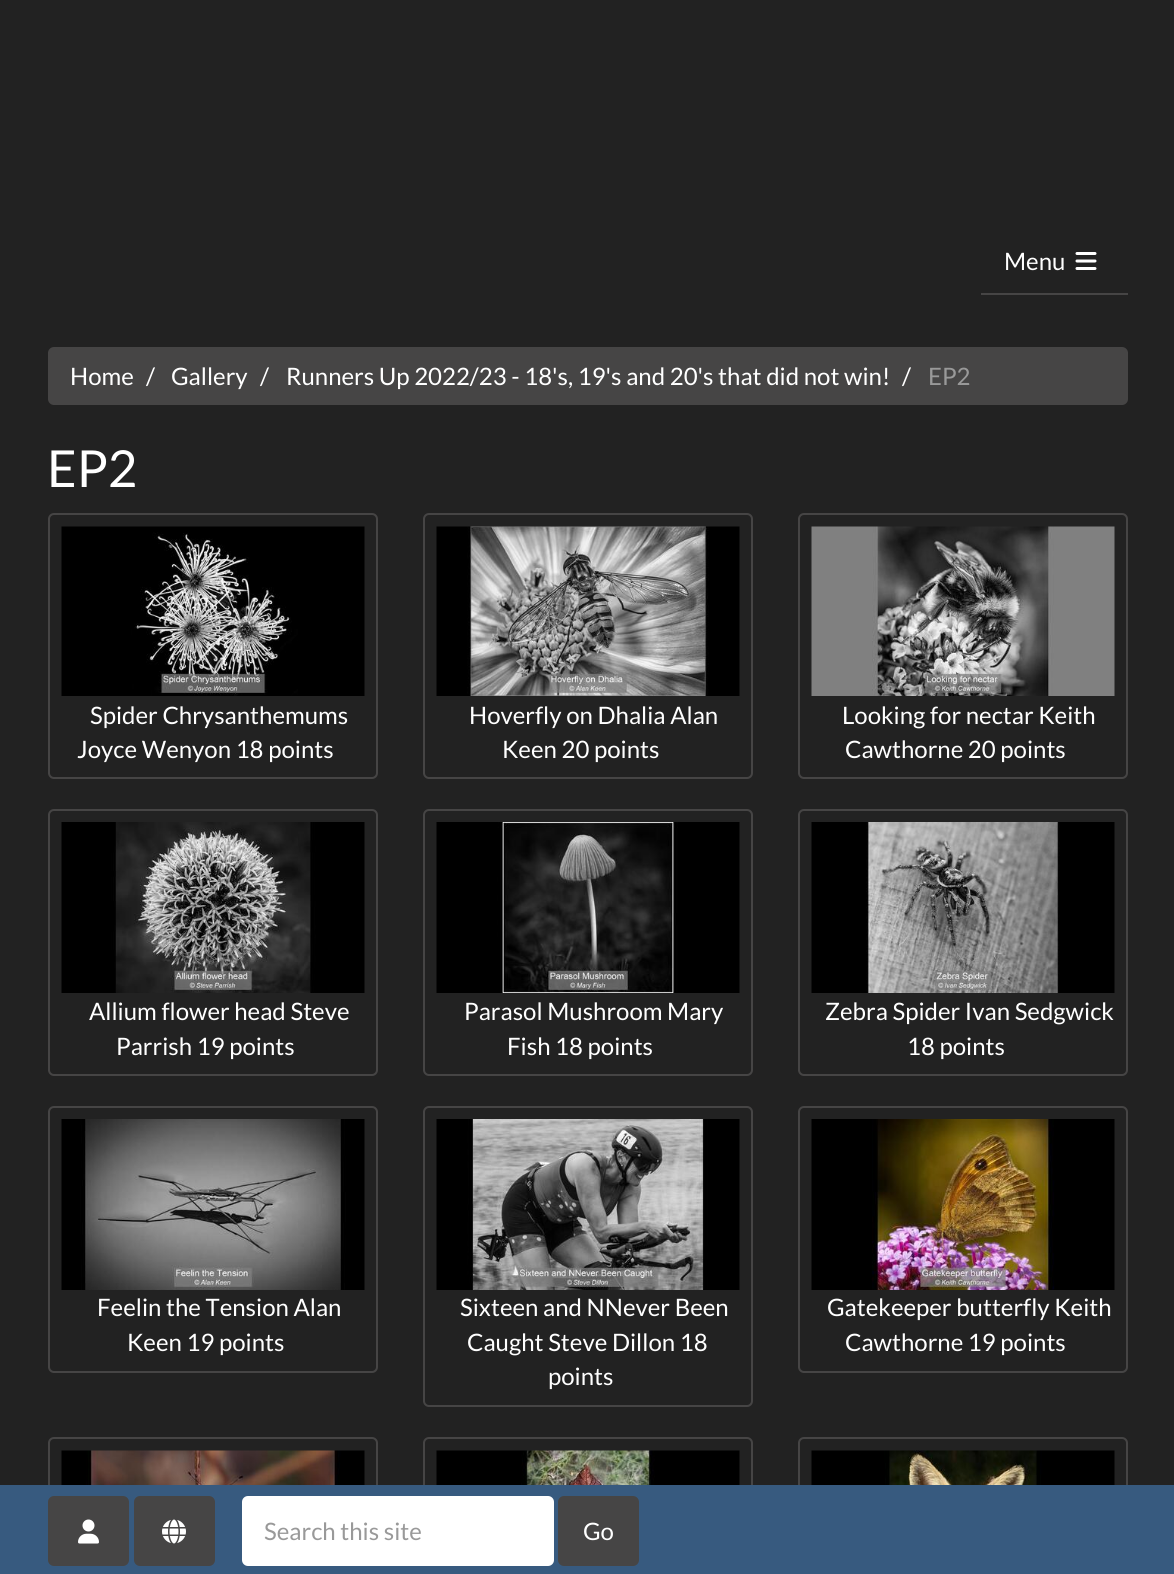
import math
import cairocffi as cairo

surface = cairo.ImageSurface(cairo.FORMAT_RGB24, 1174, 1574)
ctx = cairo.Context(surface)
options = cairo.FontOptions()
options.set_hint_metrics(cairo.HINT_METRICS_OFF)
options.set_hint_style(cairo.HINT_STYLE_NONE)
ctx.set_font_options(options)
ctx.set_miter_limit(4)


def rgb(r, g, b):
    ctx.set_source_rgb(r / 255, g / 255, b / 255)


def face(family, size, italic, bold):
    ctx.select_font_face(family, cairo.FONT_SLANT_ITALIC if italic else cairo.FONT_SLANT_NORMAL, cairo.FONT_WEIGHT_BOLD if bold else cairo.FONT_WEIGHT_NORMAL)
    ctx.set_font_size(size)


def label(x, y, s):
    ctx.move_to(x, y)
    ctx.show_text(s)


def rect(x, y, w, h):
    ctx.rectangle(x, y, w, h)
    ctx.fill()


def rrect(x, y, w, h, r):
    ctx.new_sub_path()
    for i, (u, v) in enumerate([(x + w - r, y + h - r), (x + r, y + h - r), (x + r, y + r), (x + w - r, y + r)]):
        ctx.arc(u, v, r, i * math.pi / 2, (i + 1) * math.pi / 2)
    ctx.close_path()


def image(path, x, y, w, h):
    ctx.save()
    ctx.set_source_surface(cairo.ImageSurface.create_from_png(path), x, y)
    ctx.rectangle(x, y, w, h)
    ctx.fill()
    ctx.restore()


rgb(34, 34, 34)
ctx.paint()
rgb(70, 69, 69)
rect(981, 293, 147, 2)
face('Lato', 24, 0, 0)
rgb(255, 255, 255)
label(1004, 270, 'Menu')
image('image0.png', 1075, 252, 22, 18)
rgb(70, 69, 69)
rrect(48, 347, 1080, 58, 6)
ctx.fill()
rgb(255, 255, 255)
label(70, 385, 'Home')
label(146, 385, '/')
label(171, 385, 'Gallery')
label(260, 385, '/')
label(286, 385, 'Runners Up 2022/23 - 18\'s, 19\'s and 20\'s that did not win!')
label(902, 385, '/')
rgb(153, 153, 153)
label(928, 385, 'EP2')
face('Lato', 51, 0, 0)
rgb(255, 255, 255)
label(47, 487, 'EP2')
rrect(49, 514, 328, 264, 5)
rgb(70, 69, 69)
ctx.stroke()
image('image1.png', 61, 526, 304, 170)
face('Lato', 24, 0, 0)
rgb(255, 255, 255)
label(90, 724, 'Spider Chrysanthemums')
label(77, 758, 'Joyce Wenyon 18 points')
rrect(424, 514, 328, 264, 5)
rgb(70, 69, 69)
ctx.stroke()
image('image2.png', 436, 526, 304, 170)
rgb(255, 255, 255)
label(469, 724, 'Hoverfly on Dhalia Alan')
label(502, 758, 'Keen 20 points')
rrect(799, 514, 328, 264, 5)
rgb(70, 69, 69)
ctx.stroke()
image('image3.png', 811, 526, 304, 170)
rgb(255, 255, 255)
label(842, 724, 'Looking for nectar Keith')
label(845, 758, 'Cawthorne 20 points')
rrect(49, 810, 328, 265, 5)
rgb(70, 69, 69)
ctx.stroke()
image('image4.png', 61, 822, 304, 171)
rgb(255, 255, 255)
label(89, 1020, 'Allium flower head Steve')
label(116, 1055, 'Parrish 19 points')
rrect(424, 810, 328, 265, 5)
rgb(70, 69, 69)
ctx.stroke()
image('image5.png', 436, 822, 304, 171)
rgb(255, 255, 255)
label(464, 1020, 'Parasol Mushroom Mary')
label(507, 1055, 'Fish 18 points')
rrect(799, 810, 328, 265, 5)
rgb(70, 69, 69)
ctx.stroke()
image('image6.png', 811, 822, 304, 171)
rgb(255, 255, 255)
label(825, 1020, 'Zebra Spider Ivan Sedgwick')
label(907, 1055, '18 points')
rrect(49, 1107, 328, 265, 5)
rgb(70, 69, 69)
ctx.stroke()
image('image7.png', 61, 1119, 304, 171)
rgb(255, 255, 255)
label(97, 1316, 'Feelin the Tension Alan')
label(127, 1351, 'Keen 19 points')
rrect(424, 1107, 328, 299, 5)
rgb(70, 69, 69)
ctx.stroke()
image('image8.png', 436, 1119, 304, 171)
rgb(255, 255, 255)
label(460, 1316, 'Sixteen and NNever Been')
label(467, 1351, 'Caught Steve Dillon 18')
label(548, 1385, 'points')
rrect(799, 1107, 328, 265, 5)
rgb(70, 69, 69)
ctx.stroke()
image('image9.png', 811, 1119, 304, 171)
rgb(255, 255, 255)
label(827, 1316, 'Gatekeeper butterfly Keith')
label(845, 1351, 'Cawthorne 19 points')
rrect(49, 1438, 328, 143, 5)
rgb(70, 69, 69)
ctx.stroke()
image('image10.png', 61, 1450, 304, 35)
rrect(424, 1438, 328, 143, 5)
ctx.stroke()
image('image11.png', 436, 1450, 304, 35)
rrect(799, 1438, 328, 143, 5)
ctx.stroke()
image('image12.png', 811, 1450, 304, 35)
rgb(55, 90, 127)
rect(0, 1485, 1174, 89)
rgb(70, 69, 69)
rrect(49.5, 1497.5, 78, 67, 4.5)
ctx.fill_preserve()
ctx.set_line_width(3)
ctx.stroke()
image('image13.png', 78, 1519, 21, 25)
rrect(135.5, 1497.5, 78, 67, 4.5)
ctx.fill_preserve()
ctx.stroke()
image('image14.png', 162, 1519, 24, 25)
rgb(255, 255, 255)
rrect(242, 1496, 312, 70, 6)
ctx.fill()
rgb(153, 153, 153)
label(264, 1540, 'Search this site')
rgb(70, 69, 69)
rrect(559.5, 1497.5, 78, 67, 4.5)
ctx.fill_preserve()
ctx.stroke()
rgb(255, 255, 255)
label(583, 1540, 'Go')
surface.write_to_png('render.png')
